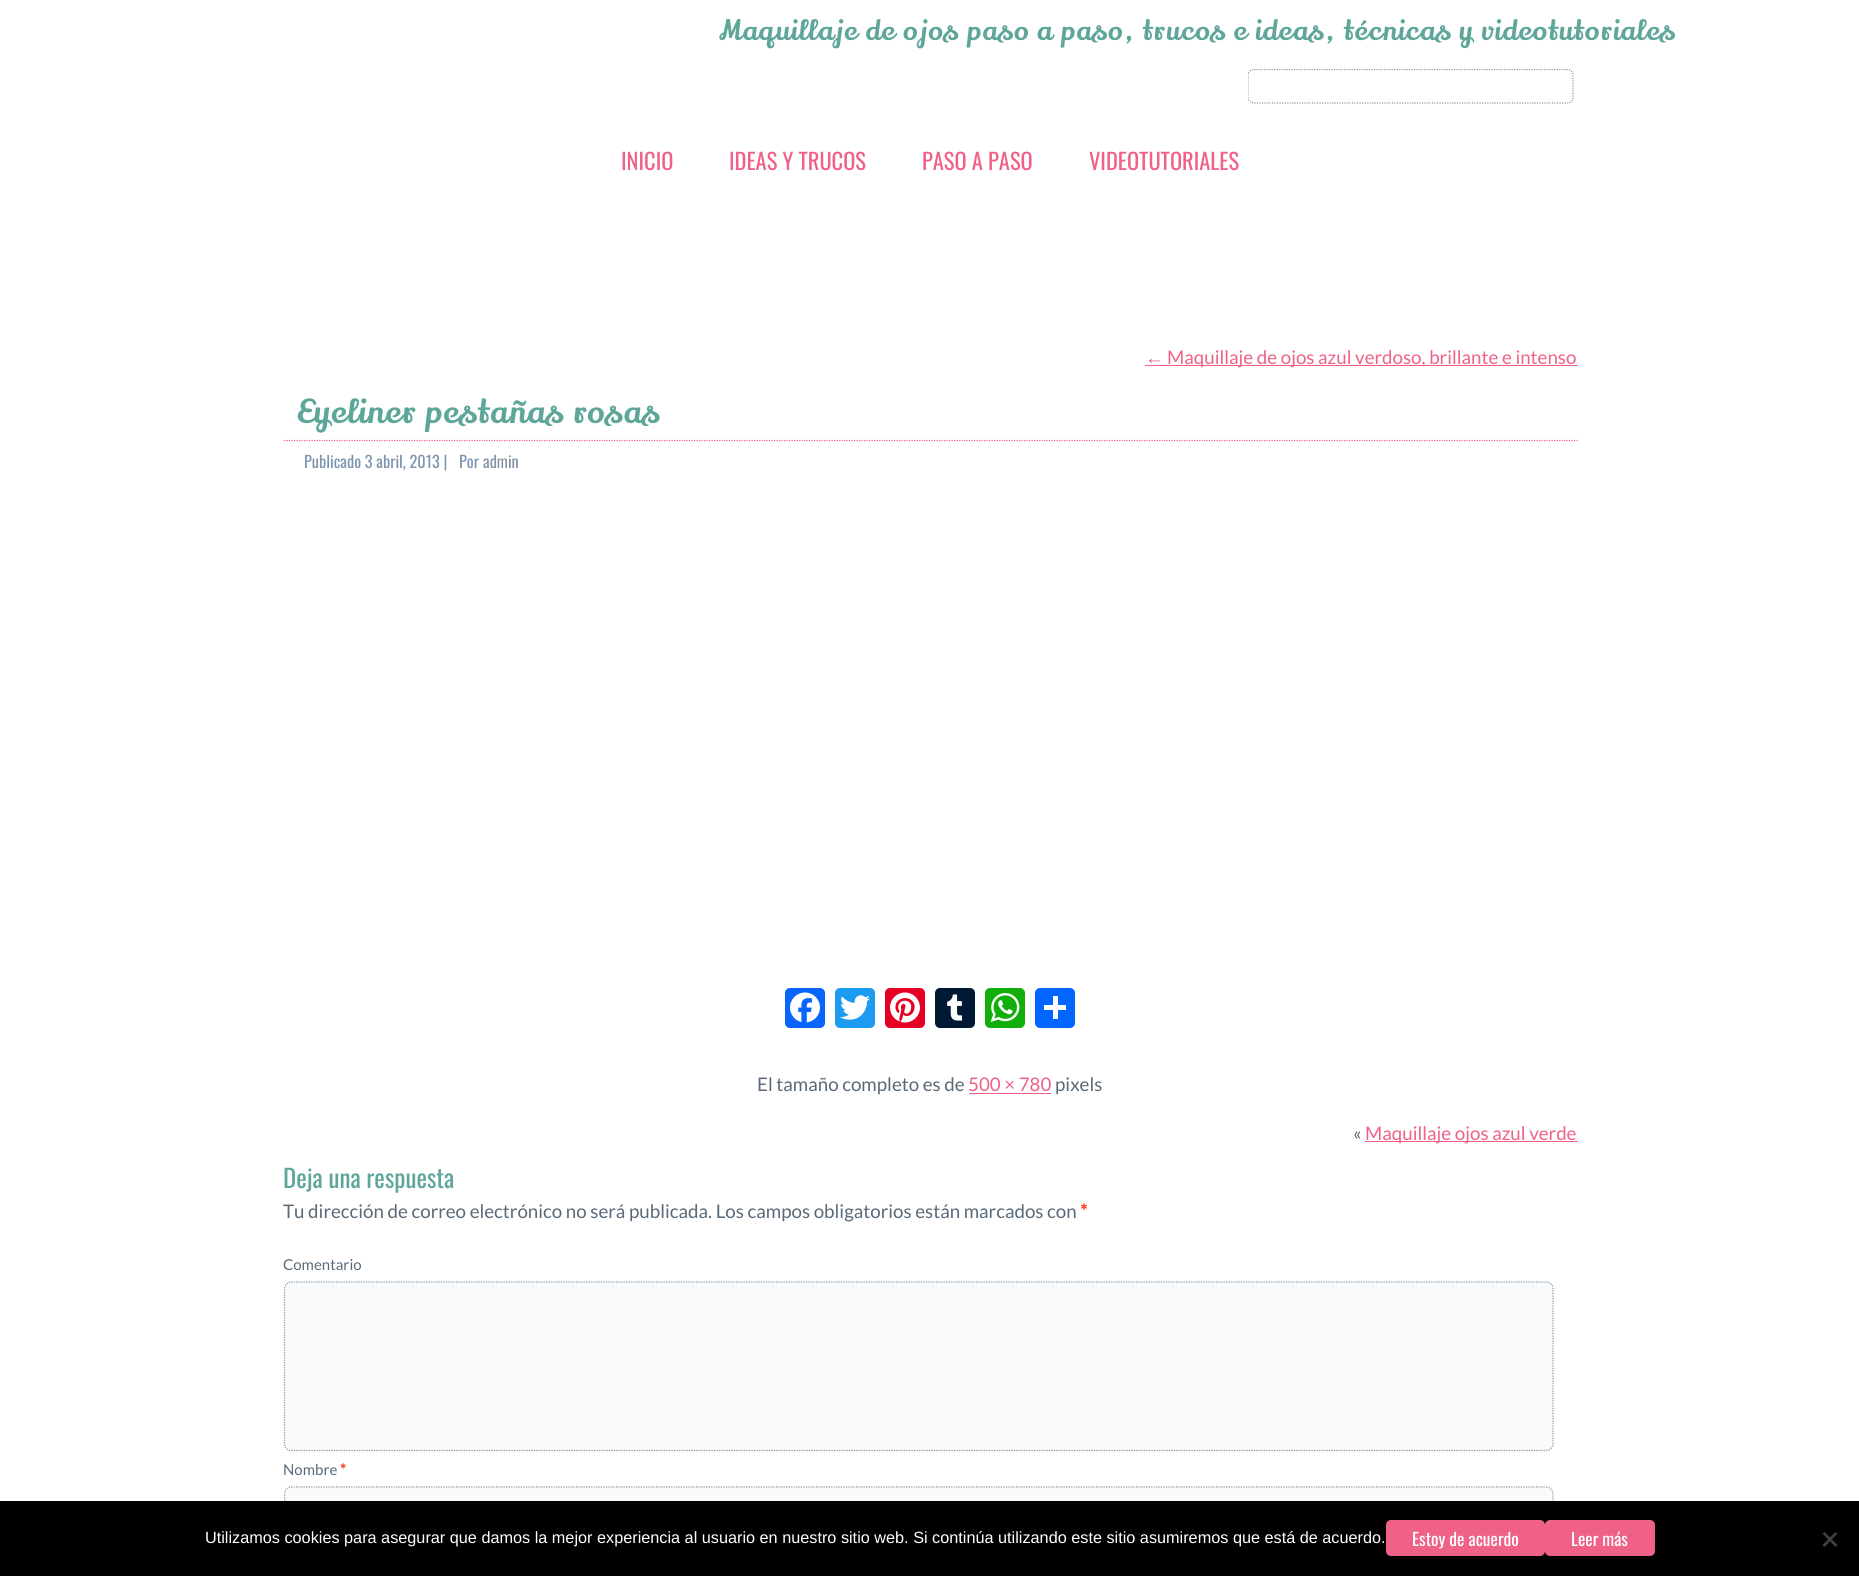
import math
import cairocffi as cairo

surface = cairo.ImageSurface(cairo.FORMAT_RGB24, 1859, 1576)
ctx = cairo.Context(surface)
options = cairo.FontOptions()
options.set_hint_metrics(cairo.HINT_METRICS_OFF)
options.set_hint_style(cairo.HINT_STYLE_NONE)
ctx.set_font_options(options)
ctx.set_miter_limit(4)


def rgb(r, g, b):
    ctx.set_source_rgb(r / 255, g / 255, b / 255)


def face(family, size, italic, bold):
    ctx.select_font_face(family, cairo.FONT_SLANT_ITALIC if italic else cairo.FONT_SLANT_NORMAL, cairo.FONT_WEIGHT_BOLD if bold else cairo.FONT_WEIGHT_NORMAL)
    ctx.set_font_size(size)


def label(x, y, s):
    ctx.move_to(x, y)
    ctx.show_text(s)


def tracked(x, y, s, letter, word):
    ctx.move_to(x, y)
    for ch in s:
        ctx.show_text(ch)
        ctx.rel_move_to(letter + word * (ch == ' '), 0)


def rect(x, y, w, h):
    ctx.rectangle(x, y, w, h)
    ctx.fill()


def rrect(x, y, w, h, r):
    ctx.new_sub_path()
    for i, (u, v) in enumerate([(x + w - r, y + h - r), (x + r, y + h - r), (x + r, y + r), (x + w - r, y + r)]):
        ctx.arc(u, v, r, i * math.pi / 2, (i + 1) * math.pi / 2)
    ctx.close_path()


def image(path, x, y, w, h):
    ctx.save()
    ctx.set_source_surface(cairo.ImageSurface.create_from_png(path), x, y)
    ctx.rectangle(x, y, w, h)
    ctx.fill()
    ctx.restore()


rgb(255, 255, 255)
ctx.paint()
face('Lily Script One', 27.5, 0, 0)
rgb(94, 166, 154)
tracked(719, 40, 'Maquillaje de ojos paso a paso, trucos e ideas, técnicas y videotutoriales', 1.25, 0)
ctx.save()
ctx.rectangle(1248, 69, 326, 35)
ctx.clip()
ctx.new_path()
ctx.move_to(1254, 69.5)
ctx.line_to(1567.5, 69.5)
ctx.curve_to(1570.5, 69.5, 1573, 72, 1573, 75)
ctx.line_to(1573, 97.5)
ctx.curve_to(1573, 100.5, 1570.5, 103, 1567.5, 103)
ctx.line_to(1254, 103)
ctx.curve_to(1250.5, 103, 1248, 100.5, 1248, 97.5)
ctx.line_to(1248, 75)
ctx.curve_to(1248, 72, 1250.5, 69.5, 1254, 69.5)
ctx.close_path()
rgb(138, 153, 168)
ctx.set_line_width(1.2)
ctx.set_dash([1.25, 1.25])
ctx.stroke()
ctx.restore()
face('Oswald', 22.5, 0, 0)
rgb(239, 97, 135)
label(621, 170, 'INICIO')
label(729, 170, 'IDEAS Y TRUCOS')
label(922, 170, 'PASO A PASO')
label(1089, 170, 'VIDEOTUTORIALES')
face('Liberation Sans', 18.75, 0, 0)
label(1145, 364, '←')
rect(1145, 365, 433, 1)
face('Lato', 18.75, 0, 0)
label(1167, 364, 'Maquillaje de ojos azul verdoso, brillante e intenso')
ctx.new_path()
ctx.move_to(284, 440.5)
ctx.line_to(1577.5, 440.5)
ctx.set_line_width(1.2)
ctx.set_dash([1.25, 1.25])
ctx.stroke()
face('Lily Script One', 32.5, 0, 0)
rgb(94, 166, 154)
tracked(297, 423, 'Eyeliner pestañas rosas', 1.25, 0)
face('Oswald', 16.25, 0, 0)
rgb(124, 150, 177)
label(304, 468, 'Publicado 3 abril, 2013 |')
label(459, 468, 'Por')
rgb(132, 148, 164)
label(483, 468, 'admin')
rgb(8, 102, 255)
rrect(785, 988, 40, 40, 5)
ctx.fill()
image('image0.png', 790, 992, 30, 31)
rgb(29, 155, 240)
rrect(835, 988, 40, 40, 5)
ctx.fill()
image('image1.png', 840, 995, 30, 25)
rgb(230, 0, 35)
rrect(885, 988, 40, 40, 5)
ctx.fill()
image('image2.png', 890, 992, 30, 31)
rgb(0, 25, 53)
rrect(935, 988, 40, 40, 5)
ctx.fill()
image('image3.png', 947, 994, 16, 27)
rgb(18, 175, 10)
rrect(985, 988, 40, 40, 5)
ctx.fill()
image('image4.png', 990, 993, 30, 29)
rgb(1, 102, 255)
rrect(1035, 988, 40, 40, 5)
ctx.fill()
rgb(255, 255, 255)
rect(1053, 996, 5, 23)
rect(1044, 1005, 22, 5)
face('Lato', 18.75, 0, 0)
rgb(89, 105, 120)
label(757, 1091, 'El tamaño completo es de')
rgb(239, 97, 135)
label(968, 1091, '500 × 780')
rect(969, 1093, 82, 1)
rgb(89, 105, 120)
label(1055, 1091, 'pixels')
label(1353, 1140, '«')
rgb(239, 97, 135)
rect(1365, 1141, 213, 1)
label(1365, 1140, 'Maquillaje ojos azul verde')
face('Oswald', 25, 0, 0)
rgb(94, 166, 154)
label(283, 1188, 'Deja una respuesta')
face('Lato', 18.75, 0, 0)
rgb(89, 105, 120)
label(283, 1218, 'Tu dirección de correo electrónico no será publicada. Los campos obligatorios están marcados con')
face('Lato', 18.75, 0, 1)
rgb(255, 75, 51)
label(1080, 1218, '*')
face('Lato', 15, 0, 0)
rgb(89, 105, 120)
label(283, 1270, 'Comentario')
rgb(249, 250, 251)
rrect(284, 1281, 1270, 170, 8)
ctx.fill()
ctx.new_path()
ctx.move_to(291, 1282)
ctx.line_to(1546, 1282)
ctx.curve_to(1550, 1282, 1553, 1285, 1553, 1289)
ctx.line_to(1553, 1444)
ctx.curve_to(1553, 1447.5, 1550, 1450.5, 1546, 1450.5)
ctx.line_to(291, 1450.5)
ctx.curve_to(287.5, 1450.5, 284.5, 1447.5, 284.5, 1444)
ctx.line_to(284.5, 1289)
ctx.curve_to(284.5, 1285, 287.5, 1282, 291, 1282)
ctx.close_path()
rgb(138, 153, 168)
ctx.stroke()
rgb(89, 105, 120)
label(283, 1475, 'Nombre')
face('Lato', 15, 0, 1)
rgb(255, 75, 51)
label(340, 1475, '*')
rgb(249, 250, 251)
rrect(284, 1486, 1270, 30, 8)
ctx.fill()
ctx.new_path()
ctx.move_to(291, 1487)
ctx.line_to(1546, 1487)
ctx.curve_to(1550, 1487, 1553, 1490, 1553, 1494)
ctx.line_to(1553, 1509)
ctx.curve_to(1553, 1512.5, 1550, 1515.5, 1546, 1515.5)
ctx.line_to(291, 1515.5)
ctx.curve_to(287.5, 1515.5, 284.5, 1512.5, 284.5, 1509)
ctx.line_to(284.5, 1494)
ctx.curve_to(284.5, 1490, 287.5, 1487, 291, 1487)
ctx.close_path()
rgb(138, 153, 168)
ctx.stroke()
rgb(0, 0, 0)
rect(0, 1501, 1859, 75)
face('Liberation Sans', 16.25, 0, 0)
rgb(255, 255, 255)
label(205, 1543, 'Utilizamos cookies para asegurar que damos la mejor experiencia al usuario en nuestro sitio web. Si continúa utilizando este sitio asumiremos que está de acuerdo.')
rgb(239, 97, 135)
rrect(1386, 1520, 159, 36, 5)
ctx.fill()
face('Oswald', 17.5, 0, 0)
rgb(255, 255, 255)
label(1412, 1546, 'Estoy de acuerdo')
rgb(239, 97, 135)
rrect(1545, 1520, 110, 36, 5)
ctx.fill()
rgb(255, 255, 255)
label(1571, 1546, 'Leer más')
rgb(64, 64, 64)
ctx.new_path()
ctx.move_to(1835.5, 1532)
ctx.line_to(1837.5, 1533.5)
ctx.line_to(1824.5, 1547)
ctx.line_to(1822.5, 1545)
ctx.close_path()
ctx.fill()
ctx.new_path()
ctx.move_to(1822.5, 1533.5)
ctx.line_to(1824.5, 1532)
ctx.line_to(1837.5, 1545)
ctx.line_to(1835.5, 1547)
ctx.close_path()
ctx.fill()
surface.write_to_png('render.png')
